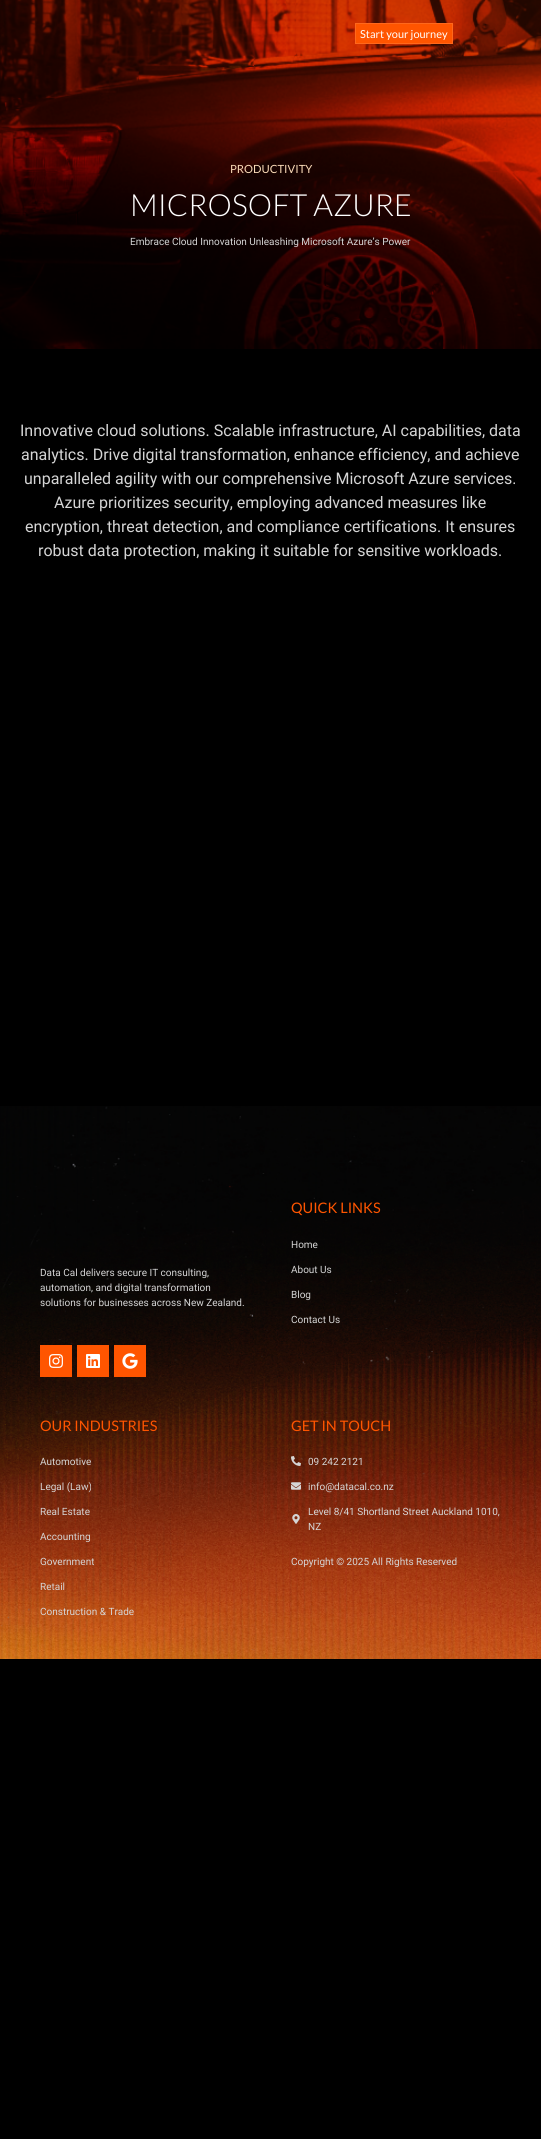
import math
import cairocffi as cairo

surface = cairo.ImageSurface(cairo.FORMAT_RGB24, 541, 2139)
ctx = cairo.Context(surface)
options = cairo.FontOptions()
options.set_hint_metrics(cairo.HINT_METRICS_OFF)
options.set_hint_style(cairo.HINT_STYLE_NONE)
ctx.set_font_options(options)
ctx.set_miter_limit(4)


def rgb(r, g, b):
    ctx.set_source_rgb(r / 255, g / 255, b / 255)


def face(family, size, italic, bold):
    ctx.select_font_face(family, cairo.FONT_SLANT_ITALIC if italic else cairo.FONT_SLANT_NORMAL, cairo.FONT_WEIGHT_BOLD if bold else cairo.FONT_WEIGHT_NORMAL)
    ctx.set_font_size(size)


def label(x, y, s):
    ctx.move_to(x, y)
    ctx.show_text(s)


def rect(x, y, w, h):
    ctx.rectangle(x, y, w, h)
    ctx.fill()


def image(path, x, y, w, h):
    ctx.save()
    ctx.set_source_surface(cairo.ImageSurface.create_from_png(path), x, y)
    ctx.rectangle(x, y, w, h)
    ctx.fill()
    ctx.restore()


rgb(0, 0, 0)
ctx.paint()
image('image0.png', 0, 0, 541, 349)
rgb(255, 85, 0)
ctx.rectangle(355.5, 23.5, 97, 20)
ctx.fill_preserve()
rgb(255, 104, 28)
ctx.set_line_width(1)
ctx.stroke()
face('Lato', 11, 0, 0)
rgb(255, 255, 255)
label(360, 38, 'Start your journey')
face('Lato', 11.25, 0, 0)
rgb(249, 218, 183)
label(230, 173, 'PRODUCTIVITY')
face('Lato Light', 30.5, 0, 0)
rgb(255, 255, 255)
label(130, 216, 'MICROSOFT AZURE')
face('Roboto', 10, 0, 0)
rgb(213, 213, 213)
label(130, 245, 'Embrace Cloud Innovation Unleashing Microsoft Azure’s Power')
face('Roboto', 16, 0, 0)
label(20, 436, 'Innovative cloud solutions. Scalable infrastructure, AI capabilities, data')
label(21, 460, 'analytics. Drive digital transformation, enhance efficiency, and achieve')
label(24, 484, 'unparalleled agility with our comprehensive Microsoft Azure services.')
label(54, 508, 'Azure prioritizes security, employing advanced measures like')
label(25, 532, 'encryption, threat detection, and compliance certifications. It ensures')
label(38, 556, 'robust data protection, making it suitable for sensitive workloads.')
image('image1.png', 0, 1106, 541, 553)
face('Roboto', 10, 0, 0)
label(40, 1276, 'Data Cal delivers secure IT consulting,')
label(40, 1291, 'automation, and digital transformation')
label(40, 1306, 'solutions for businesses across New Zealand.')
rgb(255, 85, 0)
rect(40, 1345, 32, 32)
image('image2.png', 49, 1354, 14, 14)
rect(77, 1345, 32, 32)
image('image3.png', 86, 1354, 14, 14)
rect(114, 1345, 32, 32)
image('image4.png', 122, 1353, 16, 16)
face('Lato', 14.5, 0, 0)
label(291, 1213, 'QUICK LINKS')
face('Roboto', 10, 0, 0)
rgb(213, 213, 213)
label(291, 1248, 'Home')
label(291, 1273, 'About Us')
label(291, 1298, 'Blog')
label(291, 1323, 'Contact Us')
face('Lato', 14.5, 0, 0)
rgb(255, 85, 0)
label(40, 1431, 'OUR INDUSTRIES')
face('Roboto', 10, 0, 0)
rgb(213, 213, 213)
label(40, 1465, 'Automotive')
label(40, 1490, 'Legal (Law)')
label(40, 1515, 'Real Estate')
label(40, 1540, 'Accounting')
label(40, 1565, 'Government')
label(40, 1590, 'Retail')
label(40, 1615, 'Construction & Trade')
face('Lato', 14.5, 0, 0)
rgb(255, 85, 0)
label(291, 1431, 'GET IN TOUCH')
image('image5.png', 291, 1456, 10, 10)
face('Roboto', 10, 0, 0)
rgb(213, 213, 213)
label(308, 1465, '09 242 2121')
image('image6.png', 291, 1482, 10, 8)
label(308, 1490, 'info@datacal.co.nz')
image('image7.png', 292, 1514, 8, 10)
label(308, 1515, 'Level 8/41 Shortland Street Auckland 1010,')
label(308, 1530, 'NZ')
label(291, 1565, 'Copyright © 2025 All Rights Reserved')
surface.write_to_png('render.png')
